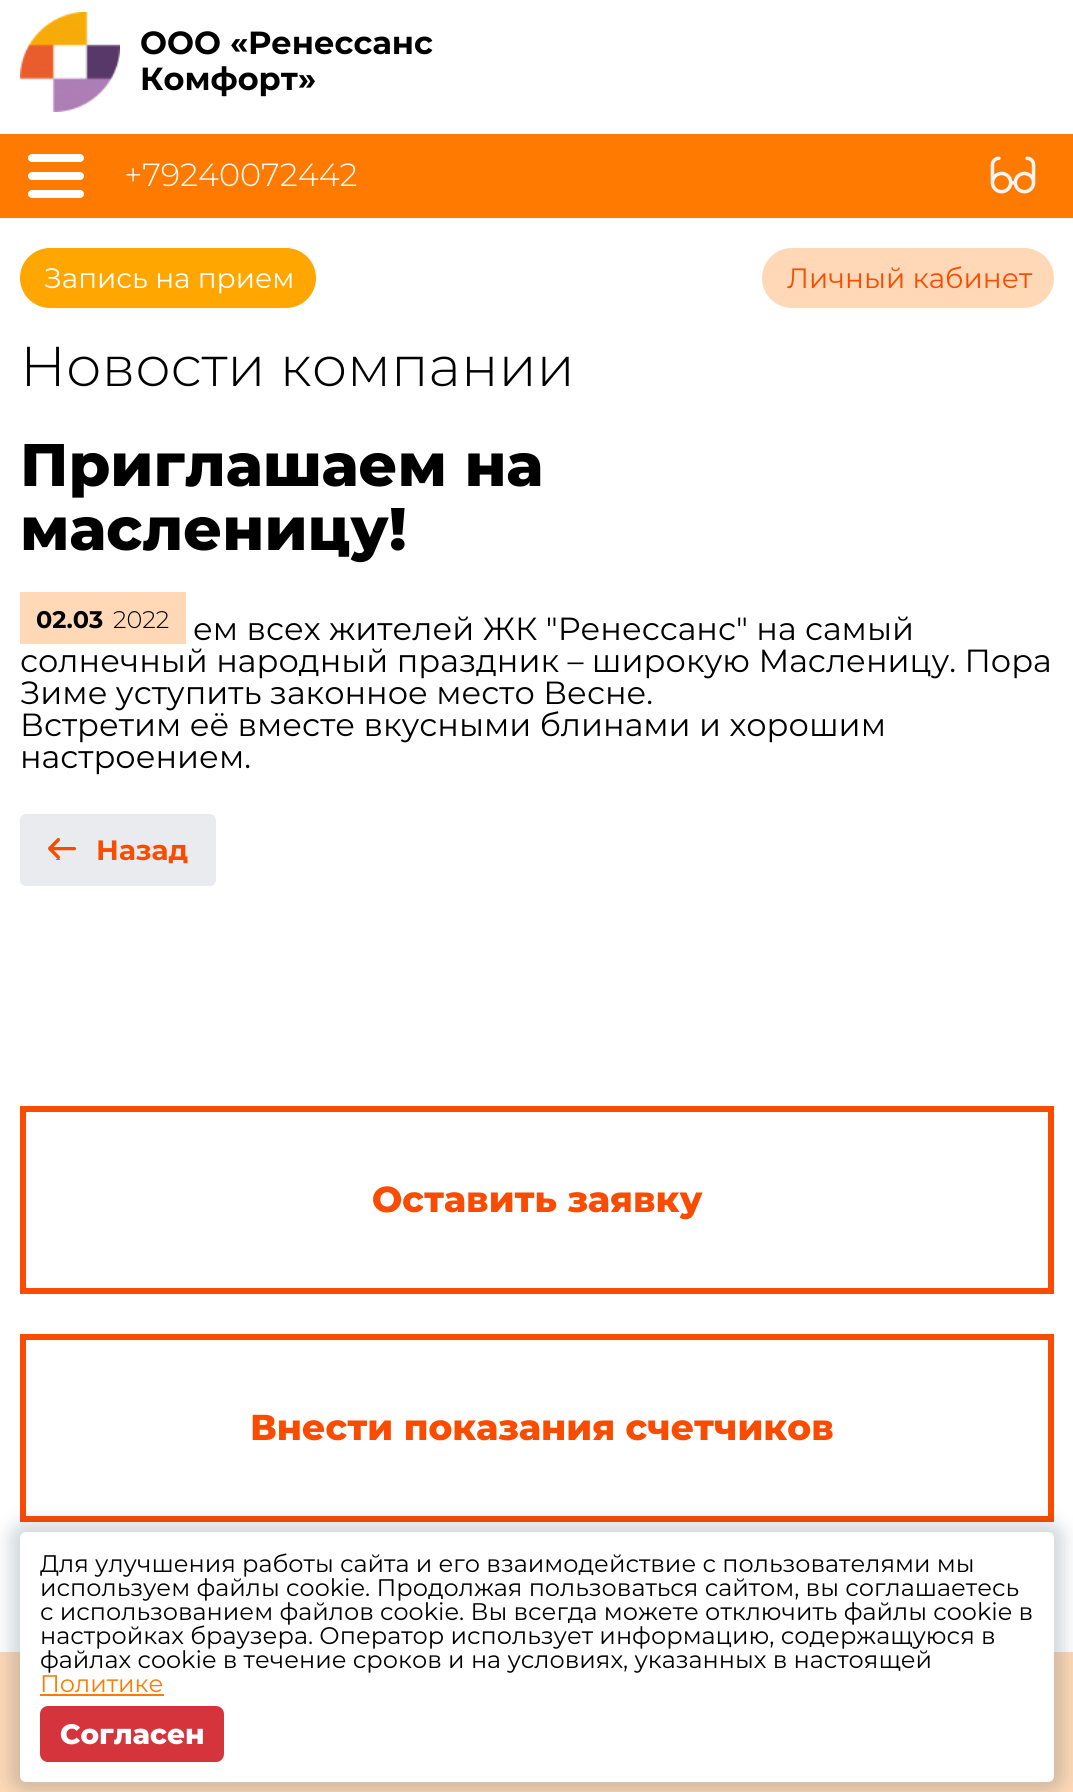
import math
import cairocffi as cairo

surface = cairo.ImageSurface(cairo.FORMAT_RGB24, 1073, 1792)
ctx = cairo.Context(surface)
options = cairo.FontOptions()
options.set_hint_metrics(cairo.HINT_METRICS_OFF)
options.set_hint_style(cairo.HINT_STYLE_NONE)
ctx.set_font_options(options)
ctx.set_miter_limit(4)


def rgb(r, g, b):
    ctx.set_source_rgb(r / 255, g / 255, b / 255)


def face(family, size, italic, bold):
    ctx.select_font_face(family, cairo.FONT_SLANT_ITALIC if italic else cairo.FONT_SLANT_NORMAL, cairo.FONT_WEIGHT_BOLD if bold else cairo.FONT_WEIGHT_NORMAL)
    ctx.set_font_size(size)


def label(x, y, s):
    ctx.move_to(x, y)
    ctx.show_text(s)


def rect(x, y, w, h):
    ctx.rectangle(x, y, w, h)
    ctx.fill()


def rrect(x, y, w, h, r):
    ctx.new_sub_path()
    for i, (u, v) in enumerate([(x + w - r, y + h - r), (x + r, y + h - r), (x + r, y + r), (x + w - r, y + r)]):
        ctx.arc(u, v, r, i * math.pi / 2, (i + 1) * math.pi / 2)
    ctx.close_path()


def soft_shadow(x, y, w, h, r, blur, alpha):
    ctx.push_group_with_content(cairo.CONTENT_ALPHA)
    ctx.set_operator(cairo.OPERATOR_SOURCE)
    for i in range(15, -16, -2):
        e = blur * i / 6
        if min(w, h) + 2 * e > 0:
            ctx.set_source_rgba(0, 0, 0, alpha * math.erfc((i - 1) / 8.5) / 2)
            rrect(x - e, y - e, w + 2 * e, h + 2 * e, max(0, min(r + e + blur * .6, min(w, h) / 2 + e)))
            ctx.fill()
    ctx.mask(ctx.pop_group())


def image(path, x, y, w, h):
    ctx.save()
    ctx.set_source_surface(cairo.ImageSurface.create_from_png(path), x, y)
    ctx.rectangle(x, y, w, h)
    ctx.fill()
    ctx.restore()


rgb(255, 255, 255)
ctx.paint()
image('image0.png', 20, 12, 100, 100)
face('Montserrat', 32, 0, 1)
rgb(0, 0, 0)
label(140, 54, 'ООО «Ренессанс')
label(140, 90, 'Комфорт»')
rgb(255, 122, 0)
rect(0, 134, 1073, 84)
rgb(255, 255, 255)
rrect(28, 154, 56, 8, 4)
ctx.fill()
rrect(28, 172, 56, 8, 4)
ctx.fill()
rrect(28, 190, 56, 8, 4)
ctx.fill()
face('Montserrat Light', 32, 0, 0)
label(124, 186, '+79240072442')
image('image1.png', 970, 134, 84, 84)
rgb(255, 166, 0)
rrect(20, 248, 296, 60, 30)
ctx.fill()
face('Montserrat', 28, 0, 0)
rgb(255, 255, 255)
label(44, 288, 'Запись на прием')
rgb(255, 217, 183)
rrect(762, 248, 292, 60, 30)
ctx.fill()
rgb(250, 76, 0)
label(787, 288, 'Личный кабинет')
face('Montserrat Light', 56, 0, 0)
rgb(0, 0, 0)
label(20, 386, 'Новости компании')
face('Montserrat ExtraBold', 60, 0, 0)
label(20, 486, 'Приглашаем на')
label(20, 550, 'масленицу!')
rgb(255, 217, 183)
rect(20, 592, 166, 52)
face('Montserrat', 24, 0, 1)
rgb(0, 0, 0)
label(36, 628, '02.03')
face('Montserrat Light', 24, 0, 0)
label(113, 628, '2022')
face('Montserrat', 32, 0, 0)
label(193, 640, 'ем всех жителей ЖК "Ренессанс" на самый')
label(20, 672, 'солнечный народный праздник – широкую Масленицу. Пора')
label(20, 704, 'Зиме уступить законное место Весне.')
label(20, 736, 'Встретим её вместе вкусными блинами и хорошим')
label(20, 768, 'настроением.')
rgb(234, 235, 239)
rrect(20, 814, 196, 72, 6)
ctx.fill()
image('image2.png', 48, 838, 28, 22)
face('Montserrat', 28, 0, 1)
rgb(250, 76, 0)
label(96, 860, 'Назад')
ctx.rectangle(23, 1109, 1028, 182)
ctx.set_line_width(6)
ctx.stroke()
face('Montserrat ExtraBold', 36, 0, 0)
label(372, 1212, 'Оставить заявку')
ctx.rectangle(23, 1337, 1028, 182)
ctx.stroke()
label(250, 1440, 'Внести показания счетчиков')
rgb(255, 217, 183)
rect(0, 1652, 1073, 140)
rgb(34, 60, 80)
soft_shadow(10, 1522, 1054, 270, 16, 9, 0.2)
rgb(255, 255, 255)
rrect(20, 1532, 1034, 250, 6)
ctx.fill()
face('Montserrat', 24, 0, 0)
rgb(0, 0, 0)
label(40, 1572, 'Для улучшения работы сайта и его взаимодействие с пользователями мы')
label(40, 1596, 'используем файлы cookie. Продолжая пользоваться сайтом, вы соглашаетесь')
label(40, 1620, 'с использованием файлов cookie. Вы всегда можете отключить файлы cookie в')
label(40, 1644, 'настройках браузера. Оператор использует информацию, содержащуюся в')
label(40, 1668, 'файлах cookie в течение сроков и на условиях, указанных в настоящей')
rgb(255, 122, 0)
label(40, 1692, 'Политике')
rect(40, 1694, 124, 2)
rgb(214, 52, 61)
rrect(40, 1706, 184, 56, 8)
ctx.fill()
face('Montserrat ExtraBold', 28, 0, 0)
rgb(255, 255, 255)
label(60, 1744, 'Согласен')
surface.write_to_png('render.png')
